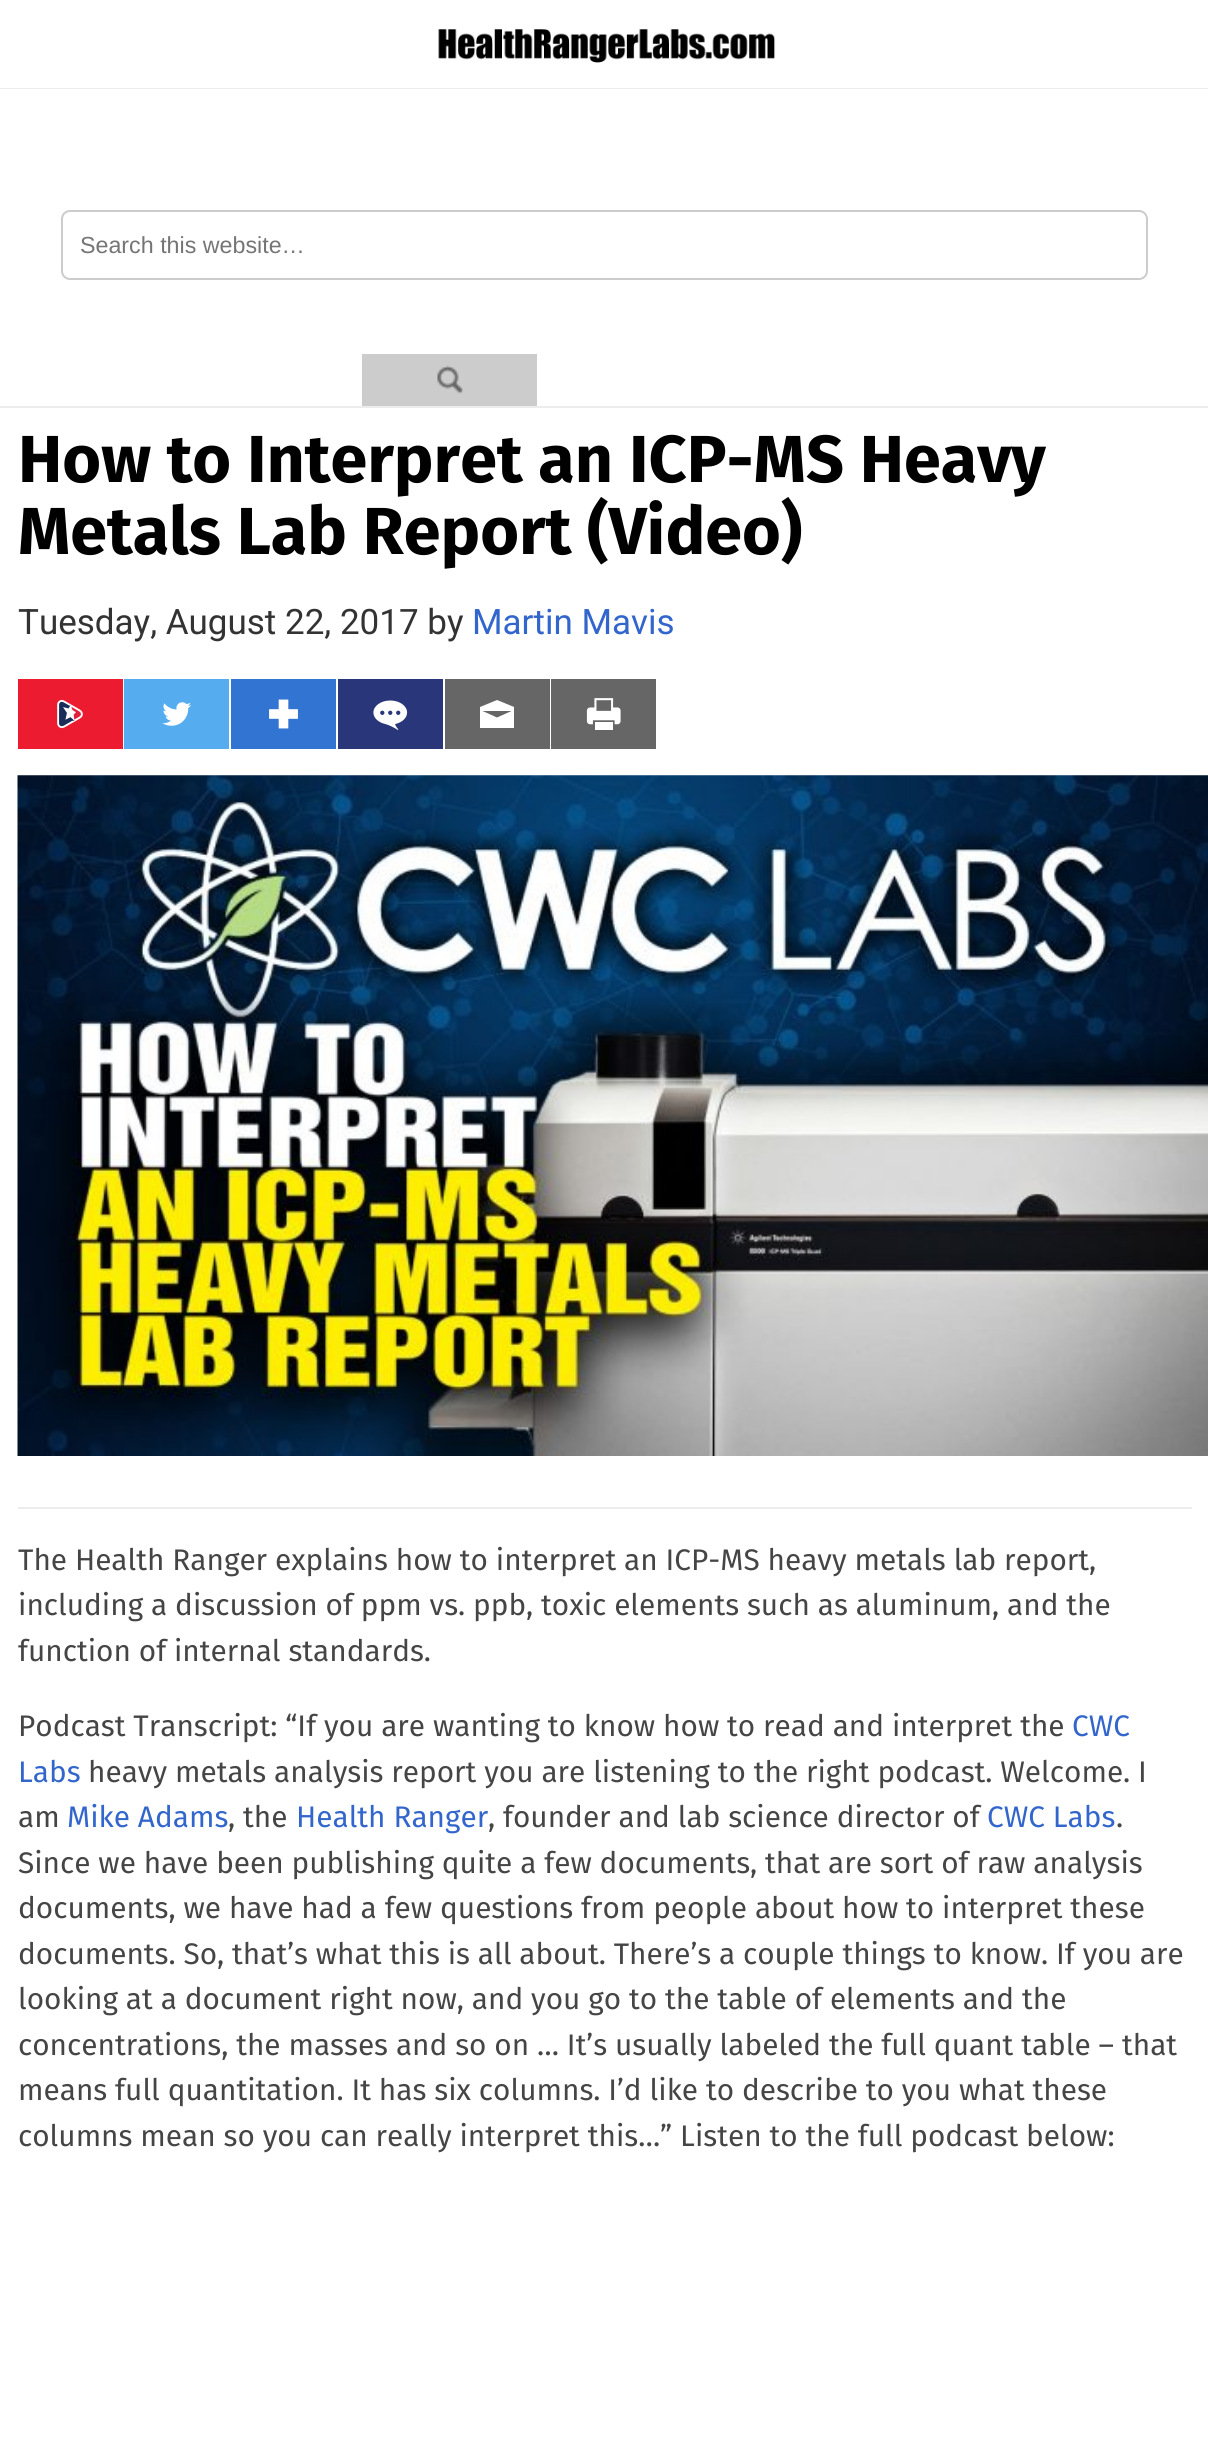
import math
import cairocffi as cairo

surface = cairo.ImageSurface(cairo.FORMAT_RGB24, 1208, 2457)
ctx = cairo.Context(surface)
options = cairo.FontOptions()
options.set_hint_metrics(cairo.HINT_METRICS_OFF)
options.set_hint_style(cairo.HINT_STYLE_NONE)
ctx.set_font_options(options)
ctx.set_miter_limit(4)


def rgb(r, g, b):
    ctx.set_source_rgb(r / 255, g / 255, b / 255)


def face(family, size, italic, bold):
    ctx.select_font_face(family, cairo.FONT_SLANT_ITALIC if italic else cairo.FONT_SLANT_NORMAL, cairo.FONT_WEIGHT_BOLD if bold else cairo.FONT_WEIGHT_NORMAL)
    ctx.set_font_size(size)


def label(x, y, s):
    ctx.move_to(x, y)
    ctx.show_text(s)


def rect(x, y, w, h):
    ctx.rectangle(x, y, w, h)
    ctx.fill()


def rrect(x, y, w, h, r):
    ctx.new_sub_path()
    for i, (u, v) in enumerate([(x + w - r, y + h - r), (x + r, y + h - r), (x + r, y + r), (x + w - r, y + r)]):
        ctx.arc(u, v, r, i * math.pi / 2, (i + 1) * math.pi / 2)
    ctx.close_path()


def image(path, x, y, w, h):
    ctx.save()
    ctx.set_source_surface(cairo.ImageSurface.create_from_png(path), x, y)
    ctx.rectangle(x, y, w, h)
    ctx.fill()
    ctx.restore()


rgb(255, 255, 255)
ctx.paint()
rgb(236, 236, 236)
rect(0, 88, 1208, 1)
image('image0.png', 438, 29, 338, 34)
rect(0, 406, 1208, 2)
rrect(62, 211, 1085, 68, 8)
rgb(204, 204, 204)
ctx.stroke()
face('Liberation Sans', 23.25, 0, 0)
rgb(117, 117, 117)
label(80, 253, 'Search this website…')
rgb(204, 204, 204)
rect(362, 354, 175, 52)
image('image1.png', 437, 365, 26, 29)
face('Fira Sans', 66.5, 0, 1)
rgb(0, 0, 0)
label(18, 482, 'How to Interpret an ICP-MS Heavy')
label(18, 554, 'Metals Lab Report (Video)')
face('Roboto', 35, 0, 0)
rgb(51, 51, 51)
label(18, 634, 'Tuesday, August 22, 2017 by')
rgb(51, 102, 204)
label(472, 634, 'Martin Mavis')
rgb(237, 27, 47)
rect(18, 679, 105, 70)
image('image2.png', 57, 699, 26, 30)
rgb(85, 172, 239)
rect(124, 679, 105, 70)
image('image3.png', 162, 702, 29, 24)
rgb(50, 116, 209)
rect(231, 679, 105, 70)
image('image4.png', 269, 699, 29, 30)
rgb(41, 54, 122)
rect(338, 679, 105, 70)
image('image5.png', 373, 700, 35, 30)
rgb(102, 102, 102)
rect(445, 679, 105, 70)
rgb(255, 255, 255)
ctx.new_path()
ctx.move_to(497, 700)
ctx.line_to(480, 707)
ctx.line_to(480, 728)
ctx.line_to(514, 728)
ctx.line_to(514, 707)
ctx.close_path()
ctx.move_to(497, 717.5)
ctx.line_to(482.5, 711)
ctx.line_to(511.5, 711)
ctx.close_path()
ctx.fill()
rgb(102, 102, 102)
rect(551, 679, 105, 70)
image('image6.png', 586, 698, 35, 32)
rgb(236, 236, 236)
rect(18, 1507, 1174, 2)
image('image7.png', 17, 775, 1191, 681)
face('Fira Sans', 29.75, 0, 0)
rgb(69, 69, 69)
label(18, 1570, 'The Health Ranger explains how to interpret an ICP-MS heavy metals lab report,')
label(18, 1615, 'including a discussion of ppm vs. ppb, toxic elements such as aluminum, and the')
label(18, 1661, 'function of internal standards.')
label(18, 1736, 'Podcast Transcript: “If you are wanting to know how to read and interpret the')
rgb(51, 102, 204)
label(1072, 1736, 'CWC')
label(18, 1782, 'Labs')
rgb(69, 69, 69)
label(88, 1782, 'heavy metals analysis report you are listening to the right podcast. Welcome. I')
label(18, 1827, 'am')
rgb(51, 102, 204)
label(67, 1827, 'Mike Adams')
rgb(69, 69, 69)
label(228, 1827, ', the')
rgb(51, 102, 204)
label(296, 1827, 'Health Ranger')
rgb(69, 69, 69)
label(488, 1827, ', founder and lab science director of')
rgb(51, 102, 204)
label(987, 1827, 'CWC Labs')
rgb(69, 69, 69)
label(1116, 1827, '.')
label(18, 1873, 'Since we have been publishing quite a few documents, that are sort of raw analysis')
label(18, 1918, 'documents, we have had a few questions from people about how to interpret these')
label(18, 1964, 'documents. So, that’s what this is all about. There’s a couple things to know. If you are')
label(18, 2009, 'looking at a document right now, and you go to the table of elements and the')
label(18, 2055, 'concentrations, the masses and so on … It’s usually labeled the full quant table – that')
label(18, 2100, 'means full quantitation. It has six columns. I’d like to describe to you what these')
label(18, 2146, 'columns mean so you can really interpret this…” Listen to the full podcast below:')
surface.write_to_png('render.png')
